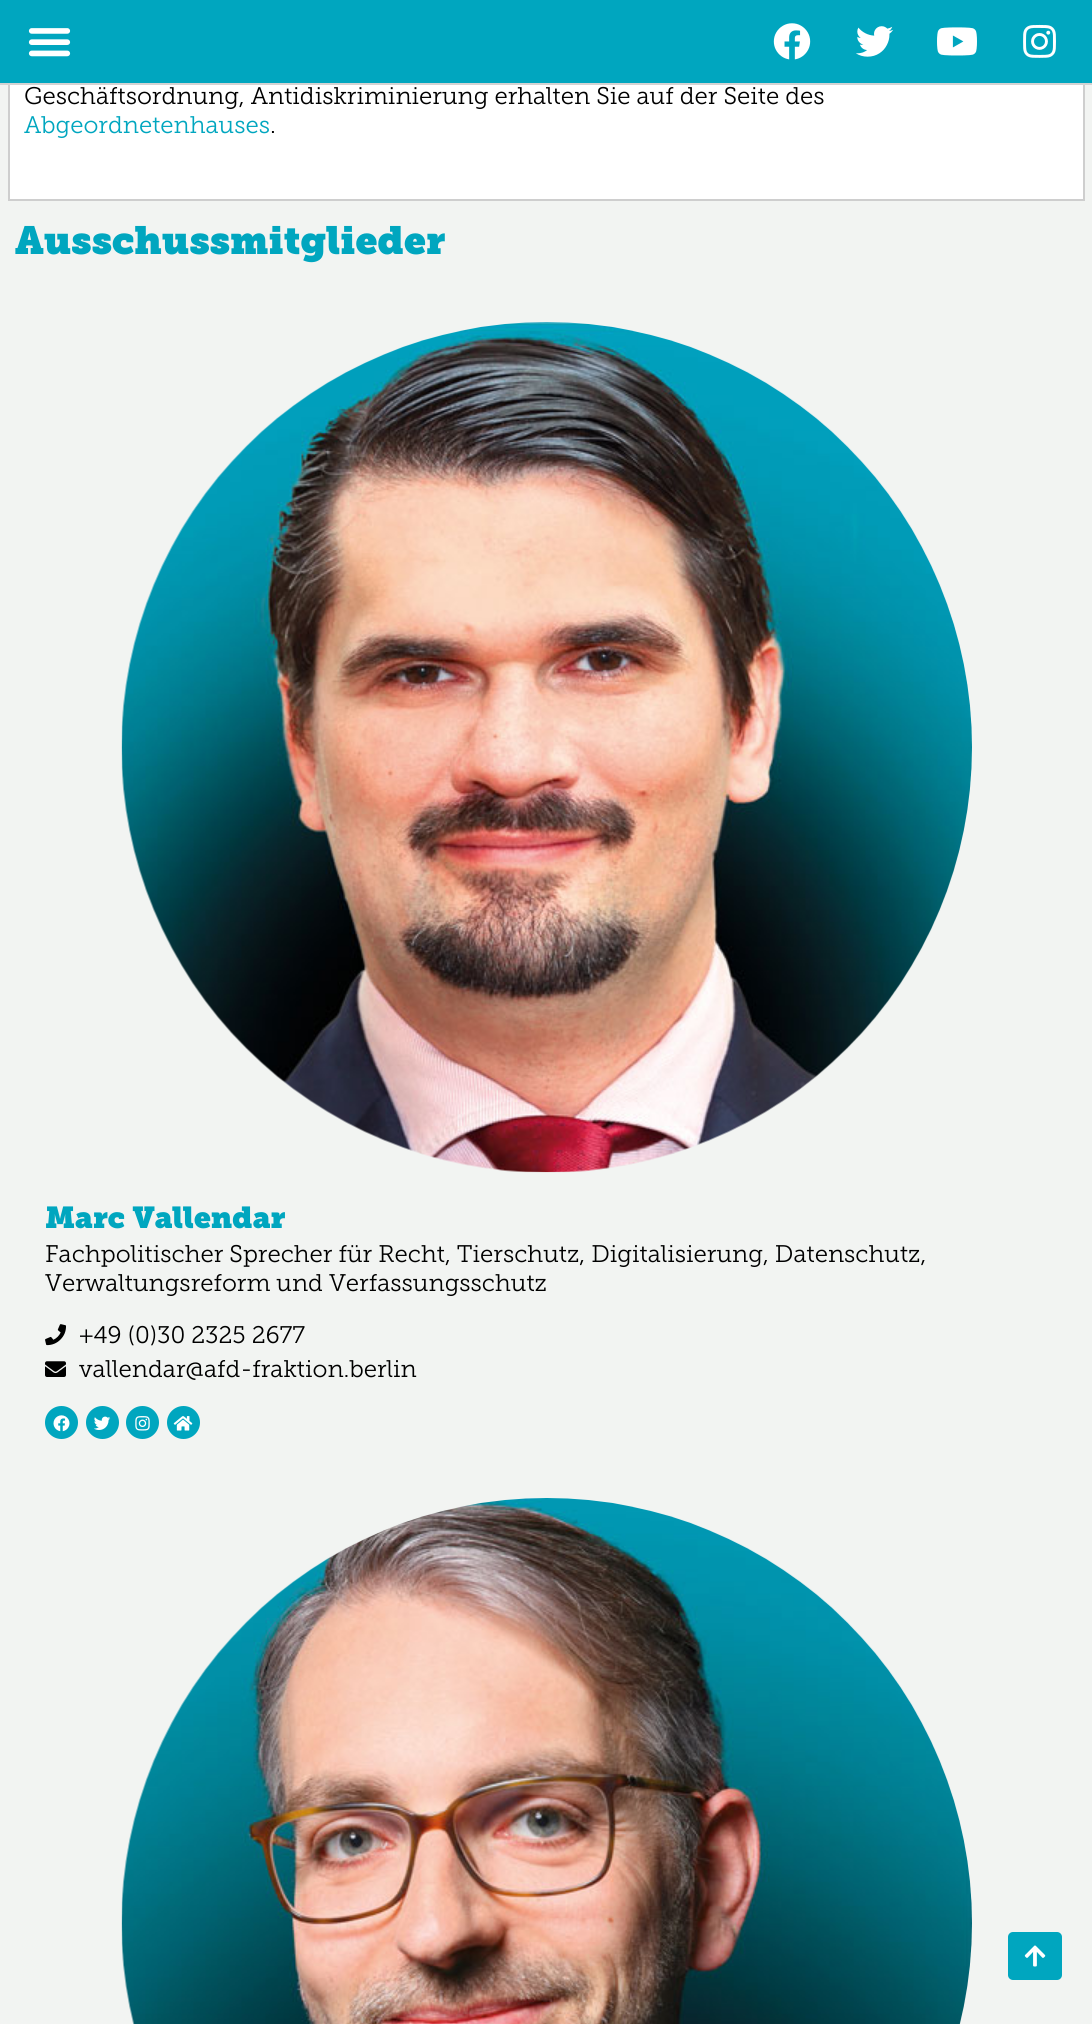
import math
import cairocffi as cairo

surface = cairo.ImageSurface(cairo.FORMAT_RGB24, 1092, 2024)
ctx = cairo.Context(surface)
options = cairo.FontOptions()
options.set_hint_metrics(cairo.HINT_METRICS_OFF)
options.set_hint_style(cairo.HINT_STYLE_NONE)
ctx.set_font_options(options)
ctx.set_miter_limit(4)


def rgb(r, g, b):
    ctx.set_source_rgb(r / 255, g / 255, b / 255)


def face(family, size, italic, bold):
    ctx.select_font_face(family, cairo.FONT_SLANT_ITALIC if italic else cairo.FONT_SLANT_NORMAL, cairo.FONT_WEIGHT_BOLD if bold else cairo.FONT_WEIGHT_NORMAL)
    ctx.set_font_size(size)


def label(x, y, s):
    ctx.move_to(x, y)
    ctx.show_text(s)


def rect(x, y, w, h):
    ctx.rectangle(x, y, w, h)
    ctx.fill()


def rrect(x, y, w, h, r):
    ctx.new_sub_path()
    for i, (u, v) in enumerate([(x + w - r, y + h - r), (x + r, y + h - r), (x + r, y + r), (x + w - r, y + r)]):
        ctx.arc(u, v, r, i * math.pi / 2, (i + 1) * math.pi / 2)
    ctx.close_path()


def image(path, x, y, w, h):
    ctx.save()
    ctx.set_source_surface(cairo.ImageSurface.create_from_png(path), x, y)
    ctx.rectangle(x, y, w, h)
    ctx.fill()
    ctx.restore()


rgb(242, 244, 242)
ctx.paint()
rgb(255, 255, 255)
rect(10, 85, 1073, 114)
ctx.rectangle(9, -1, 1075, 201)
rgb(206, 206, 206)
ctx.stroke()
rgb(0, 166, 191)
rect(0, 0, 1092, 83)
rgb(211, 211, 211)
rect(0, 83, 1092, 2)
image('image0.png', 28, 28, 43, 29)
image('image1.png', 773, 23, 38, 37)
image('image2.png', 856, 26, 38, 31)
image('image3.png', 937, 27, 40, 29)
image('image4.png', 1023, 24, 33, 34)
face('Museo Slab Light', 24, 0, 0)
rgb(0, 0, 0)
label(24, 104, 'Geschäftsordnung, Antidiskriminierung erhalten Sie auf der Seite des')
rgb(0, 166, 191)
label(24, 133, 'Abgeordnetenhauses')
rgb(0, 0, 0)
label(270, 133, '.')
face('Museo Slab Black', 39, 0, 0)
rgb(0, 166, 191)
label(15, 254, 'Ausschussmitglieder')
image('image5.png', 121, 322, 851, 851)
face('Museo Slab Black', 30, 0, 0)
label(45, 1228, 'Marc Vallendar')
face('Museo Slab Light', 24, 0, 0)
rgb(0, 0, 0)
label(45, 1262, 'Fachpolitischer Sprecher für Recht, Tierschutz, Digitalisierung, Datenschutz,')
label(45, 1291, 'Verwaltungsreform und Verfassungsschutz')
image('image6.png', 45, 1324, 21, 22)
label(79, 1343, '+49 (0)30 2325 2677')
image('image7.png', 45, 1361, 21, 16)
label(79, 1377, 'vallendar@afd-fraktion.berlin')
rgb(0, 166, 191)
ctx.new_path()
ctx.arc(61.5, 1422.5, 16.5, 0, 2 * math.pi)
ctx.fill()
image('image8.png', 53, 1415, 17, 17)
ctx.arc(102.5, 1422.5, 16.5, 0, 2 * math.pi)
ctx.fill()
image('image9.png', 94, 1416, 17, 14)
ctx.arc(142.5, 1422.5, 16.5, 0, 2 * math.pi)
ctx.fill()
image('image10.png', 135, 1416, 15, 15)
ctx.arc(183.5, 1422.5, 16.5, 0, 2 * math.pi)
ctx.fill()
image('image11.png', 173, 1416, 20, 15)
image('image12.png', 121, 1498, 851, 526)
rrect(1008, 1932, 54, 48, 5)
ctx.fill()
image('image13.png', 1024, 1945, 22, 22)
surface.write_to_png('render.png')
